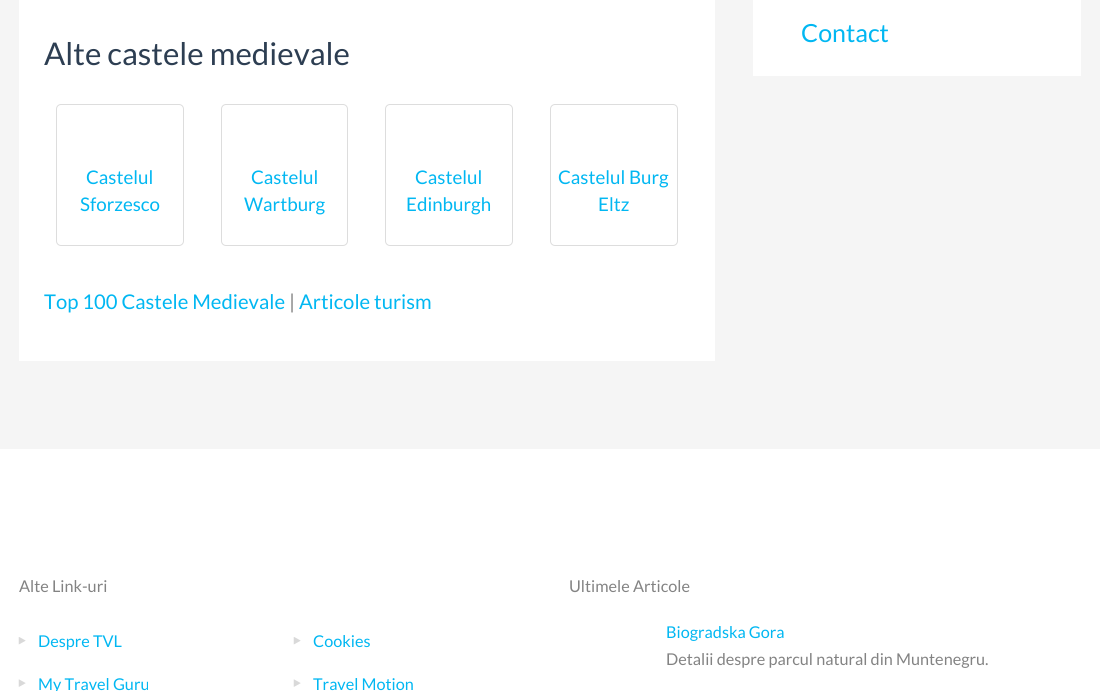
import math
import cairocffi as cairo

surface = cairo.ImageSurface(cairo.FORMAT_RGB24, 1100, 691)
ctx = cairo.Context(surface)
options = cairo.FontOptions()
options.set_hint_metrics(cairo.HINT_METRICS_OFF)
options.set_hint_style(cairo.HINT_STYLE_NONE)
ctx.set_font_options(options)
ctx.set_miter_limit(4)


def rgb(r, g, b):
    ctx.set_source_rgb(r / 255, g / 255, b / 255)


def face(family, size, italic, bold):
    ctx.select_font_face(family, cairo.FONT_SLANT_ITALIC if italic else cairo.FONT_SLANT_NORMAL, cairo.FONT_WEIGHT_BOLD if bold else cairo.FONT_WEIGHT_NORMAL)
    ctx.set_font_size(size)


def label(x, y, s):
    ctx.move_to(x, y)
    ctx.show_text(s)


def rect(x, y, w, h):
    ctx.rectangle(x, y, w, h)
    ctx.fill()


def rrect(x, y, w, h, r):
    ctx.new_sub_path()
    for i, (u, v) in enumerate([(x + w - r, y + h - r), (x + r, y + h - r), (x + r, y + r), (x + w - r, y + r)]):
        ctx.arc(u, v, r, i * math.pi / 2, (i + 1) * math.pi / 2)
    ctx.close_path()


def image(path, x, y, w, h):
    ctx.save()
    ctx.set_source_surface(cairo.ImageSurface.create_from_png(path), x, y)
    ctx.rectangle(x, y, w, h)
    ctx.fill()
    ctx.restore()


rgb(255, 255, 255)
ctx.paint()
rgb(245, 245, 245)
rect(0, 0, 1100, 449)
rgb(255, 255, 255)
rect(753, 0, 328, 76)
face('Lato', 25, 0, 0)
rgb(1, 183, 242)
label(801, 42, 'Contact')
rgb(255, 255, 255)
rect(19, 0, 696, 361)
face('Lato', 31.25, 0, 0)
rgb(45, 62, 82)
label(44, 65, 'Alte castele medievale')
rrect(56.5, 104.5, 127, 141, 4.5)
rgb(221, 221, 221)
ctx.set_line_width(1)
ctx.stroke()
face('Lato', 18.75, 0, 0)
rgb(1, 183, 242)
label(86, 184, 'Castelul')
label(80, 211, 'Sforzesco')
rrect(221.5, 104.5, 126, 141, 4.5)
rgb(221, 221, 221)
ctx.stroke()
rgb(1, 183, 242)
label(251, 184, 'Castelul')
label(244, 211, 'Wartburg')
rrect(385.5, 104.5, 127, 141, 4.5)
rgb(221, 221, 221)
ctx.stroke()
rgb(1, 183, 242)
label(415, 184, 'Castelul')
label(406, 211, 'Edinburgh')
rrect(550.5, 104.5, 127, 141, 4.5)
rgb(221, 221, 221)
ctx.stroke()
rgb(1, 183, 242)
label(558, 184, 'Castelul Burg')
label(598, 211, 'Eltz')
face('Lato', 20.25, 0, 0)
label(44, 309, 'Top 100 Castele Medievale')
rgb(131, 131, 131)
label(289, 309, '|')
rgb(1, 183, 242)
label(299, 309, 'Articole turism')
face('Lato', 16.25, 0, 0)
rgb(131, 131, 131)
label(19, 592, 'Alte Link-uri')
image('image0.png', 18, 637, 8, 8)
rgb(1, 183, 242)
label(38, 647, 'Despre TVL')
image('image0.png', 293, 637, 8, 8)
label(313, 647, 'Cookies')
image('image1.png', 18, 679, 8, 8)
label(38, 690, 'My Travel Guru')
image('image1.png', 293, 679, 8, 8)
label(313, 690, 'Travel Motion')
rgb(131, 131, 131)
label(569, 592, 'Ultimele Articole')
rgb(1, 183, 242)
label(666, 638, 'Biogradska Gora')
rgb(131, 131, 131)
label(666, 665, 'Detalii despre parcul natural din Muntenegru.')
surface.write_to_png('render.png')
